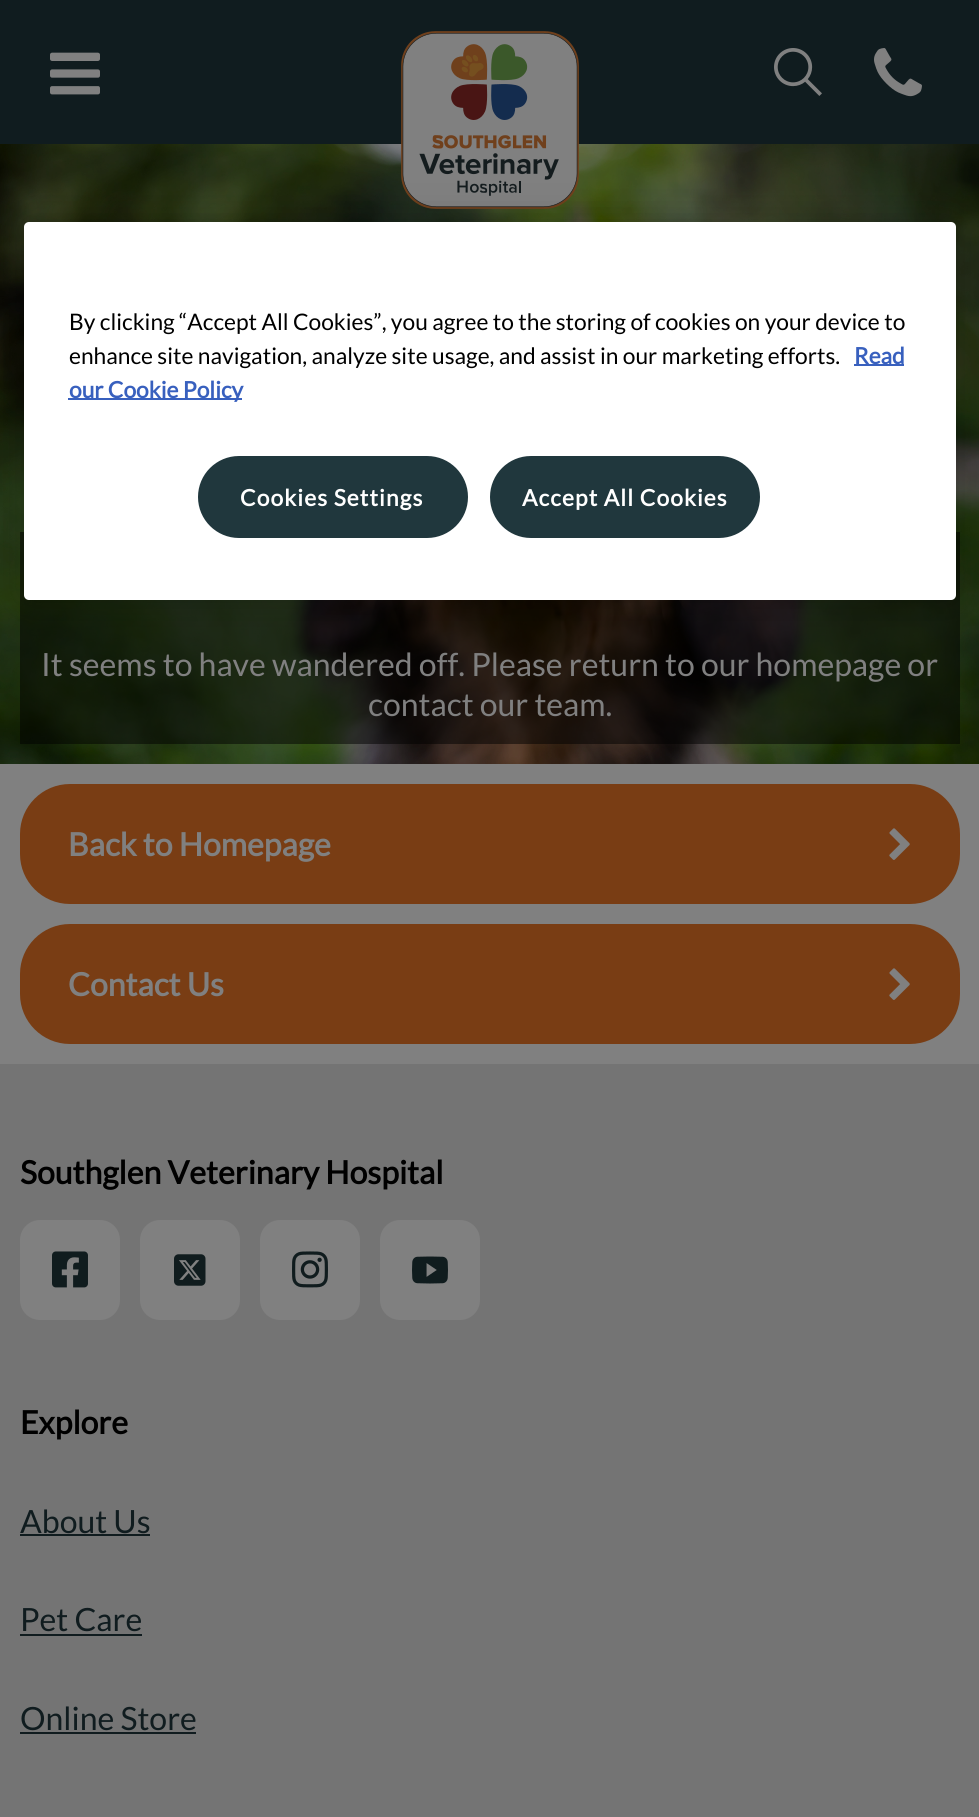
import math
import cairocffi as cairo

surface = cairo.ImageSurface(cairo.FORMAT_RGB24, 979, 1817)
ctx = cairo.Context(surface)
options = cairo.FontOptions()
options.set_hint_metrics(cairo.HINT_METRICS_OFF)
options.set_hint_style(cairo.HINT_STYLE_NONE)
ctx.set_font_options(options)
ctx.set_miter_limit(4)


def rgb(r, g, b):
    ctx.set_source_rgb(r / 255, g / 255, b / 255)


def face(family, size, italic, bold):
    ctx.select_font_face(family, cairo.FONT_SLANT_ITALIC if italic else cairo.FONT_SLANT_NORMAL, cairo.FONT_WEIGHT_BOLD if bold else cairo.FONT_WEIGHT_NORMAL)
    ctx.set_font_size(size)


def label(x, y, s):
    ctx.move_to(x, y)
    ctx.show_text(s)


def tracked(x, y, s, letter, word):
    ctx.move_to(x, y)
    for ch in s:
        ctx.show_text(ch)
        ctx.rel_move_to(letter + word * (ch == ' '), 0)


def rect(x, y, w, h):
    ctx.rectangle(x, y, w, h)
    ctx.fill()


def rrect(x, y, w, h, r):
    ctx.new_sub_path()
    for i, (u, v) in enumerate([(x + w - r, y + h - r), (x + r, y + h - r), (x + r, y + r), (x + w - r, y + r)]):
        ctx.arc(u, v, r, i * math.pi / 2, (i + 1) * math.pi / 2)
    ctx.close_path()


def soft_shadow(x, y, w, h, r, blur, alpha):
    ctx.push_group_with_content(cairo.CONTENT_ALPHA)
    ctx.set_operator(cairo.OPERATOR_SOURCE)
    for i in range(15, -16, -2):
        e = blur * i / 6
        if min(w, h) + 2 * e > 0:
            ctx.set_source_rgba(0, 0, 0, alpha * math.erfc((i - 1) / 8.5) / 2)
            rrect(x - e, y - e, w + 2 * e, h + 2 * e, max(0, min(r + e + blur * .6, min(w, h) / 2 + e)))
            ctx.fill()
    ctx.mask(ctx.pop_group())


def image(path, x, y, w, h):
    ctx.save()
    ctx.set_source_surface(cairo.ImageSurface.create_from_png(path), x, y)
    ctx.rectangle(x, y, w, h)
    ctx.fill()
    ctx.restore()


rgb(128, 128, 128)
ctx.paint()
rgb(16, 28, 31)
rect(0, 0, 979, 144)
image('image4.png', 0, 144, 979, 620)
image('image1.png', 401, 31, 178, 178)
ctx.set_source_rgba(0, 0, 0, 0.5)
rect(20, 532, 940, 212)
rgb(0, 0, 0)
soft_shadow(24, 222, 932, 378, 5, 18, 0.2)
rgb(255, 255, 255)
rrect(24, 222, 932, 378, 5)
ctx.fill()
face('Lato', 22.75, 0, 0)
rgb(0, 0, 0)
label(69, 330, 'By clicking “Accept All Cookies”, you agree to the storing of cookies on your device to')
label(69, 364, 'enhance site navigation, analyze site usage, and assist in our marketing efforts.')
rgb(56, 96, 190)
rect(854, 364, 50, 2)
face('Lato', 22.75, 0, 1)
label(854, 364, 'Read')
rect(68, 398, 174, 2)
label(69, 398, 'our Cookie Policy')
rgb(32, 55, 61)
rrect(199, 457, 268, 80, 40)
ctx.fill_preserve()
ctx.stroke()
rgb(255, 255, 255)
tracked(240, 506, 'Cookies Settings', 1.1, 0)
rgb(32, 55, 61)
rrect(491, 457, 268, 80, 40)
ctx.fill_preserve()
ctx.stroke()
rgb(255, 255, 255)
tracked(522, 506, 'Accept All Cookies', 1.1, 0)
image('image0.png', 50, 52, 50, 43)
image('image2.png', 774, 48, 48, 48)
image('image3.png', 874, 48, 48, 49)
face('Lato', 32, 0, 0)
rgb(128, 128, 128)
label(41, 676, 'It seems to have wandered off. Please return to our homepage or')
label(368, 716, 'contact our team.')
rgb(121, 61, 20)
rrect(22, 786, 936, 116, 48)
ctx.fill_preserve()
ctx.set_line_width(4)
ctx.stroke()
face('Lato', 32, 0, 1)
rgb(128, 128, 128)
label(68, 856, 'Back to Homepage')
image('image5.png', 889, 828, 21, 32)
rgb(121, 61, 20)
rrect(22, 926, 936, 116, 48)
ctx.fill_preserve()
ctx.stroke()
rgb(128, 128, 128)
label(68, 996, 'Contact Us')
image('image5.png', 889, 968, 21, 32)
rgb(116, 116, 116)
rect(0, 1064, 979, 753)
rgb(0, 0, 0)
label(20, 1184, 'Southglen Veterinary Hospital')
rgb(128, 128, 128)
rrect(20, 1220, 100, 100, 20)
ctx.fill()
image('image6.png', 52, 1251, 36, 37)
rrect(140, 1220, 100, 100, 20)
ctx.fill()
image('image7.png', 174, 1254, 32, 32)
rrect(260, 1220, 100, 100, 20)
ctx.fill()
image('image8.png', 292, 1251, 36, 37)
rrect(380, 1220, 100, 100, 20)
ctx.fill()
image('image9.png', 412, 1256, 36, 28)
rgb(0, 0, 0)
label(20, 1434, 'Explore')
face('Lato', 32, 0, 0)
rgb(16, 28, 31)
label(20, 1533, 'About Us')
rect(20, 1534, 130, 2)
label(20, 1631, 'Pet Care')
rect(20, 1634, 122, 2)
label(20, 1730, 'Online Store')
rect(20, 1732, 176, 2)
surface.write_to_png('render.png')
